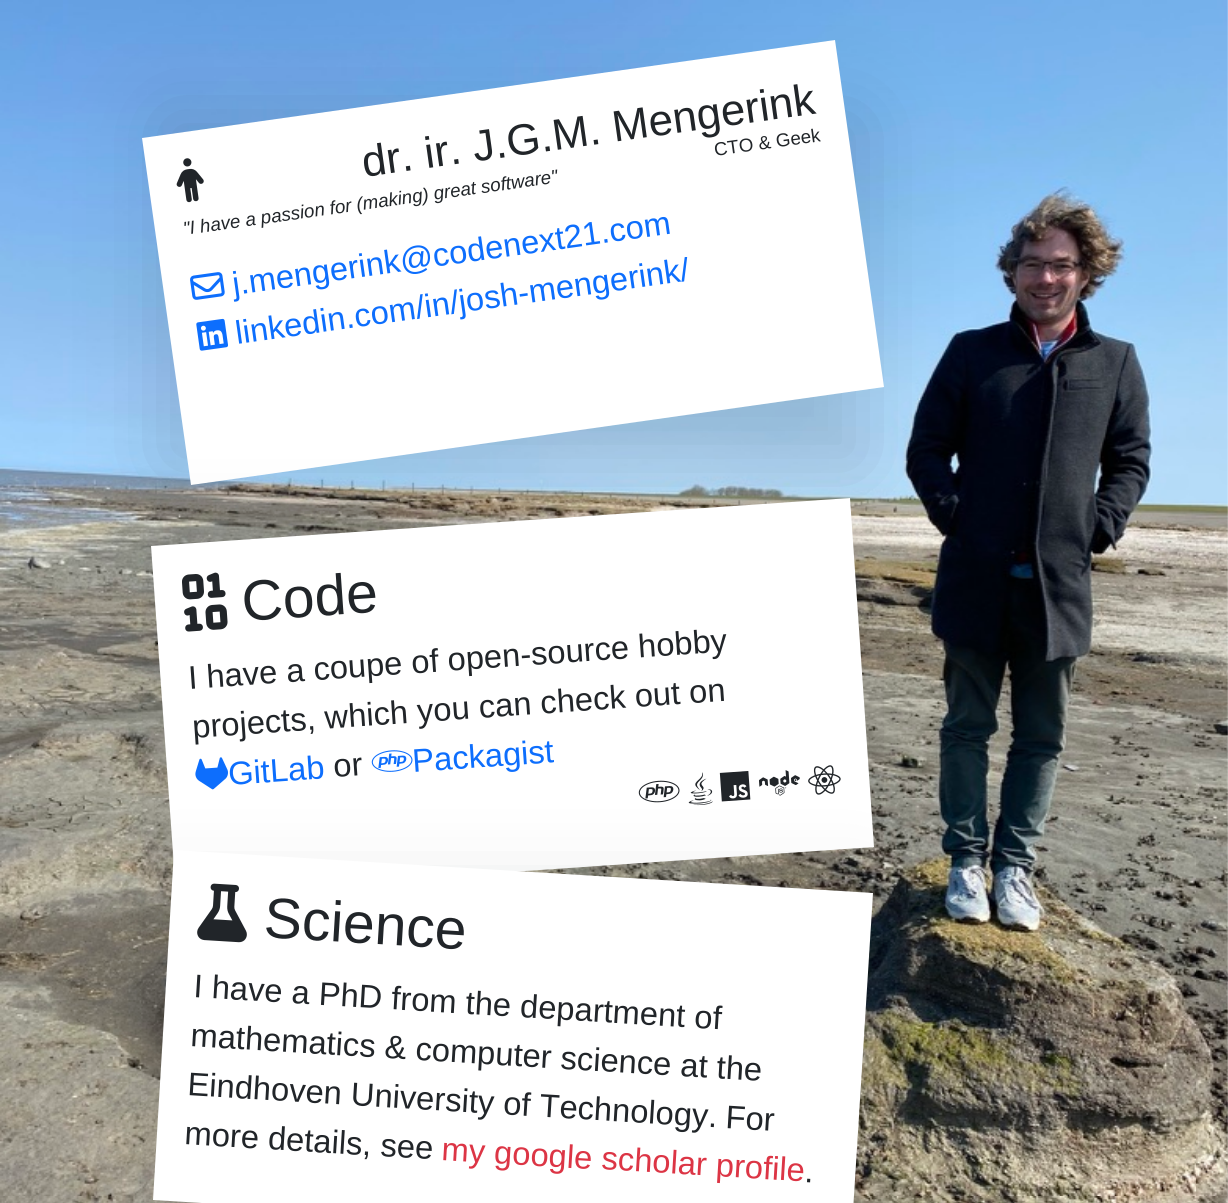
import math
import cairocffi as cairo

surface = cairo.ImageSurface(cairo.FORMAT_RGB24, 1228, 1203)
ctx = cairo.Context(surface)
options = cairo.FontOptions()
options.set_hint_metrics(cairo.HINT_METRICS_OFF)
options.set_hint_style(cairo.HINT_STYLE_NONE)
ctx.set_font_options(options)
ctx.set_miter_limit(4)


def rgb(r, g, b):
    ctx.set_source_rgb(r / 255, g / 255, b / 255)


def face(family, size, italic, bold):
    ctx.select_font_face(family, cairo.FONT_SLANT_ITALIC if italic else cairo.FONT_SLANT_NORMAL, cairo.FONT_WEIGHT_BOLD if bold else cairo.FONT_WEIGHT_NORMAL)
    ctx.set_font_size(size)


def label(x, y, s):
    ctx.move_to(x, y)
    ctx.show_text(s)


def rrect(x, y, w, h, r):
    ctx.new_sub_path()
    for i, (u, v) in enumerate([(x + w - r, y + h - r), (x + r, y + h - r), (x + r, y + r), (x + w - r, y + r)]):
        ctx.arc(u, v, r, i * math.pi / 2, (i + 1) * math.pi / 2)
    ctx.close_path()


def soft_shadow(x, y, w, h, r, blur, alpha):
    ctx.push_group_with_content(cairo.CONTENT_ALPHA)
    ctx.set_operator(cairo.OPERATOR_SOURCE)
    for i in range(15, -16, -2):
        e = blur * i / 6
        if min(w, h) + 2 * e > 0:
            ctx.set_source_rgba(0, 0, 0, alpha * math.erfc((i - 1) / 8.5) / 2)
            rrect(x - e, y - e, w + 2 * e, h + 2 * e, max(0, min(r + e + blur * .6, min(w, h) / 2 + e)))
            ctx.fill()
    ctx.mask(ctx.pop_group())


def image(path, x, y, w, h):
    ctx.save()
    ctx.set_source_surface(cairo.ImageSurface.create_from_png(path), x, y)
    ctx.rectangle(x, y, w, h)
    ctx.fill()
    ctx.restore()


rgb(255, 255, 255)
ctx.paint()
image('image0.png', 0, 0, 1228, 1203)
rgb(33, 37, 41)
soft_shadow(163, 116, 700, 350, 0, 42, 0.18)
rgb(255, 255, 255)
ctx.new_path()
ctx.move_to(142, 138)
ctx.line_to(835, 40)
ctx.line_to(884, 387)
ctx.line_to(191, 485)
ctx.close_path()
ctx.fill()
image('image1.png', 176, 158, 28, 45)
face('Liberation Sans', 43.75, 0, 0)
rgb(33, 37, 41)
ctx.save()
ctx.translate(364, 177)
ctx.rotate(-8 * math.pi / 180)
label(0, 0, 'dr. ir. J.G.M. Mengerink')
ctx.restore()
face('Liberation Sans', 18.7, 0, 0)
ctx.save()
ctx.translate(715, 156)
ctx.rotate(-8 * math.pi / 180)
label(0, 0, 'CTO & Geek')
ctx.restore()
face('Liberation Sans', 18.7, 1, 0)
ctx.save()
ctx.translate(184, 235)
ctx.rotate(-8 * math.pi / 180)
label(0, 0, '"I have a passion for (making) great software"')
ctx.restore()
image('image2.png', 190, 272, 35, 28)
face('Liberation Sans', 32.7, 0, 0)
rgb(13, 110, 253)
ctx.save()
ctx.translate(234, 295)
ctx.rotate(-8 * math.pi / 180)
label(0, 0, 'j.mengerink@codenext21.com')
ctx.restore()
image('image3.png', 196, 318, 32, 33)
ctx.save()
ctx.translate(237, 344)
ctx.rotate(-8 * math.pi / 180)
label(0, 0, 'linkedin.com/in/josh-mengerink/')
ctx.restore()
rgb(33, 37, 41)
soft_shadow(163, 550, 700, 350, 0, 42, 0.18)
rgb(255, 255, 255)
ctx.new_path()
ctx.move_to(151, 546)
ctx.line_to(850, 498)
ctx.line_to(874, 847)
ctx.line_to(176, 895)
ctx.close_path()
ctx.fill()
image('image4.png', 182, 572, 46, 60)
face('Liberation Sans', 57, 0, 0)
rgb(33, 37, 41)
ctx.save()
ctx.translate(243, 621)
ctx.rotate(-4 * math.pi / 180)
label(0, 0, 'Code')
ctx.restore()
face('Liberation Sans', 32.7, 0, 0)
ctx.save()
ctx.translate(189, 689)
ctx.rotate(-4 * math.pi / 180)
label(0, 0, 'I have a coupe of open-source hobby')
ctx.restore()
ctx.save()
ctx.translate(193, 738)
ctx.rotate(-4 * math.pi / 180)
label(0, 0, 'projects, which you can check out on')
ctx.restore()
image('image5.png', 195, 757, 33, 33)
rgb(13, 110, 253)
ctx.save()
ctx.translate(229, 785)
ctx.rotate(-4 * math.pi / 180)
label(0, 0, 'GitLab')
ctx.restore()
rgb(33, 37, 41)
ctx.save()
ctx.translate(334, 777)
ctx.rotate(-4 * math.pi / 180)
label(0, 0, 'or')
ctx.restore()
image('image6.png', 371, 750, 42, 22)
rgb(13, 110, 253)
ctx.save()
ctx.translate(413, 772)
ctx.rotate(-4 * math.pi / 180)
label(0, 0, 'Packagist')
ctx.restore()
image('image7.png', 638, 780, 42, 23)
image('image8.png', 688, 772, 25, 34)
image('image9.png', 719, 771, 32, 31)
image('image10.png', 759, 770, 41, 26)
image('image11.png', 808, 765, 33, 30)
rgb(33, 37, 41)
soft_shadow(163, 900, 700, 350, 0, 42, 0.18)
rgb(255, 255, 255)
ctx.new_path()
ctx.move_to(174, 850)
ctx.line_to(873, 893)
ctx.line_to(851, 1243)
ctx.line_to(153, 1200)
ctx.close_path()
ctx.fill()
image('image12.png', 197, 883, 50, 60)
face('Liberation Sans', 57, 0, 0)
rgb(33, 37, 41)
ctx.save()
ctx.translate(263, 937)
ctx.rotate(3.5 * math.pi / 180)
label(0, 0, 'Science')
ctx.restore()
face('Liberation Sans', 32.7, 0, 0)
ctx.save()
ctx.translate(193, 997)
ctx.rotate(3.5 * math.pi / 180)
label(0, 0, 'I have a PhD from the department of')
ctx.restore()
ctx.save()
ctx.translate(190, 1046)
ctx.rotate(3.5 * math.pi / 180)
label(0, 0, 'mathematics & computer science at the')
ctx.restore()
ctx.save()
ctx.translate(187, 1095)
ctx.rotate(3.5 * math.pi / 180)
label(0, 0, 'Eindhoven University of Technology.')
ctx.restore()
ctx.save()
ctx.translate(725, 1128)
ctx.rotate(3.5 * math.pi / 180)
label(0, 0, 'For')
ctx.restore()
ctx.save()
ctx.translate(184, 1144)
ctx.rotate(3.5 * math.pi / 180)
label(0, 0, 'more details, see')
ctx.restore()
rgb(220, 53, 69)
ctx.save()
ctx.translate(441, 1160)
ctx.rotate(3.5 * math.pi / 180)
label(0, 0, 'my google')
ctx.restore()
ctx.save()
ctx.translate(601, 1169)
ctx.rotate(3.5 * math.pi / 180)
label(0, 0, 'scholar profile')
ctx.restore()
rgb(33, 37, 41)
ctx.save()
ctx.translate(804, 1182)
ctx.rotate(3.5 * math.pi / 180)
label(0, 0, '.')
ctx.restore()
surface.write_to_png('render.png')
